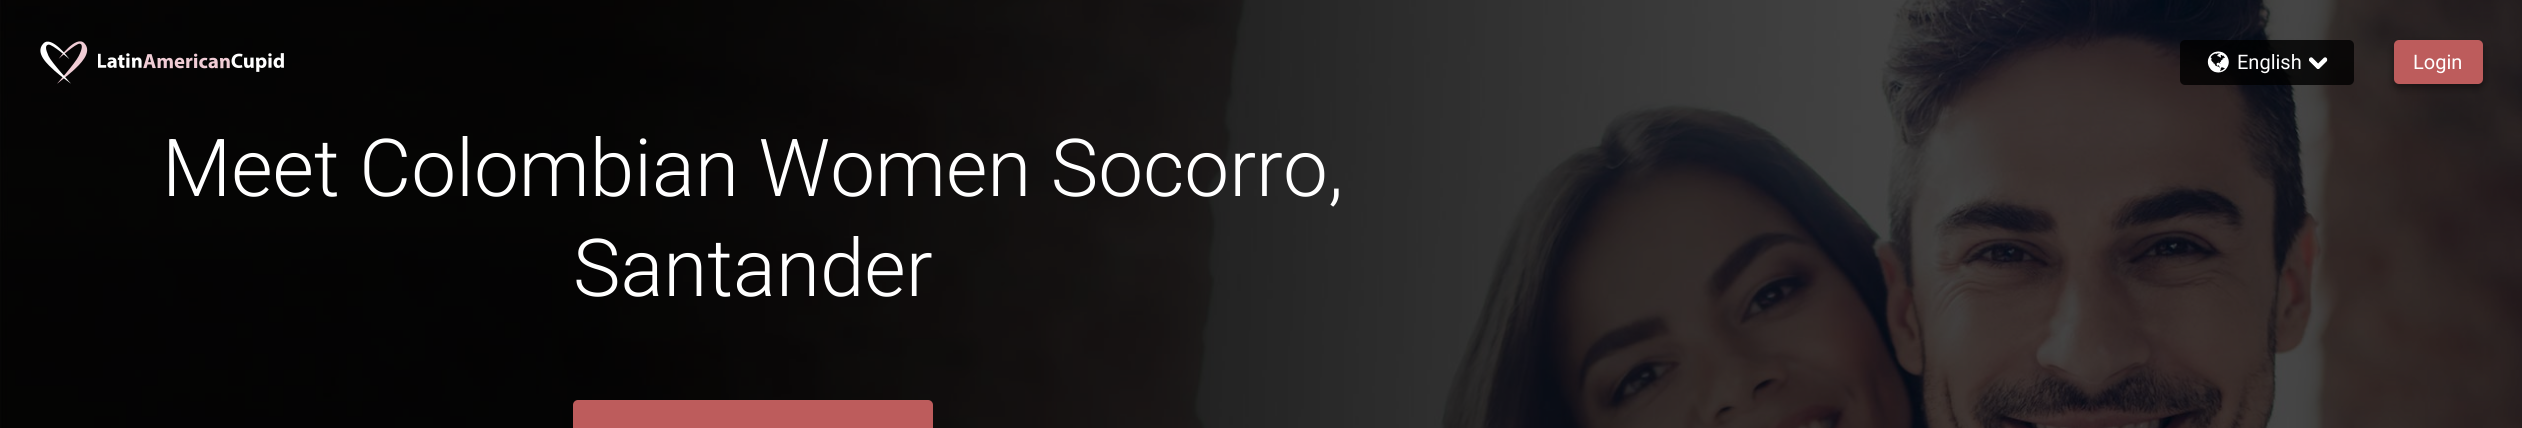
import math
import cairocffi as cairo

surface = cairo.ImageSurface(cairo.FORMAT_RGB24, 2522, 428)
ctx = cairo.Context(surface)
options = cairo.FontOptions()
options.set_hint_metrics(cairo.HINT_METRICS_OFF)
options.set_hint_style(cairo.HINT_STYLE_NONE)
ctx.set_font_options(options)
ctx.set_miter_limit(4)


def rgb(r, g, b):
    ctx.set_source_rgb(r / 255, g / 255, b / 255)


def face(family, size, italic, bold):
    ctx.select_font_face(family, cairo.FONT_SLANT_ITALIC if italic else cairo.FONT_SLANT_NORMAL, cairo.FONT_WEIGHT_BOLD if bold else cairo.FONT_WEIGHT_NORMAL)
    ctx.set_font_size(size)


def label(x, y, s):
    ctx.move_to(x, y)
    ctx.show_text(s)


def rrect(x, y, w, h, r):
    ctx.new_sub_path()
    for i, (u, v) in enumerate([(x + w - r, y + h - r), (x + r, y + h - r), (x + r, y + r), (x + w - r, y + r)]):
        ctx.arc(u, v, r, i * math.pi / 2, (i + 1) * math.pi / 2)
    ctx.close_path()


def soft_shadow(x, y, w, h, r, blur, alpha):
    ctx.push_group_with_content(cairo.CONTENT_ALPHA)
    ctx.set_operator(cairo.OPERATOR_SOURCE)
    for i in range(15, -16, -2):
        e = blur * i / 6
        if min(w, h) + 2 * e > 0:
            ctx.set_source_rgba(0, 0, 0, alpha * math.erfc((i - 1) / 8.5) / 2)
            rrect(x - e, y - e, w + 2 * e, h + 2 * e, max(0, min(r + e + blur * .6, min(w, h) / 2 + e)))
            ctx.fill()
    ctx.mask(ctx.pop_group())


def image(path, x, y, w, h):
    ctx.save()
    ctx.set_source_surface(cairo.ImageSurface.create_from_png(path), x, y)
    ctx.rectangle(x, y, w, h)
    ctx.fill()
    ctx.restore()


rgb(255, 255, 255)
ctx.paint()
image('image4.png', 0, 0, 2522, 428)
image('image0.png', 40, 41, 48, 43)
image('image1.png', 98, 53, 186, 19)
ctx.set_source_rgba(0, 0, 0, 0.8)
rrect(2180, 40, 174, 45, 5)
ctx.fill()
image('image2.png', 2207, 51, 22, 22)
face('Roboto', 20, 0, 0)
rgb(255, 255, 255)
label(2237, 69, 'English')
image('image3.png', 2309, 57, 19, 12)
rgb(0, 0, 0)
soft_shadow(2394, 44, 89, 44, 5, 4, 0.4)
rgb(189, 92, 92)
rrect(2394, 40, 89, 44, 5)
ctx.fill()
rgb(255, 255, 255)
label(2413, 69, 'Login')
face('Roboto Light', 80, 0, 0)
label(162, 196, 'Meet Colombian Women Socorro,')
label(573, 296, 'Santander')
rgb(189, 92, 92)
rrect(573, 400, 360, 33, 5)
ctx.fill()
surface.write_to_png('render.png')
